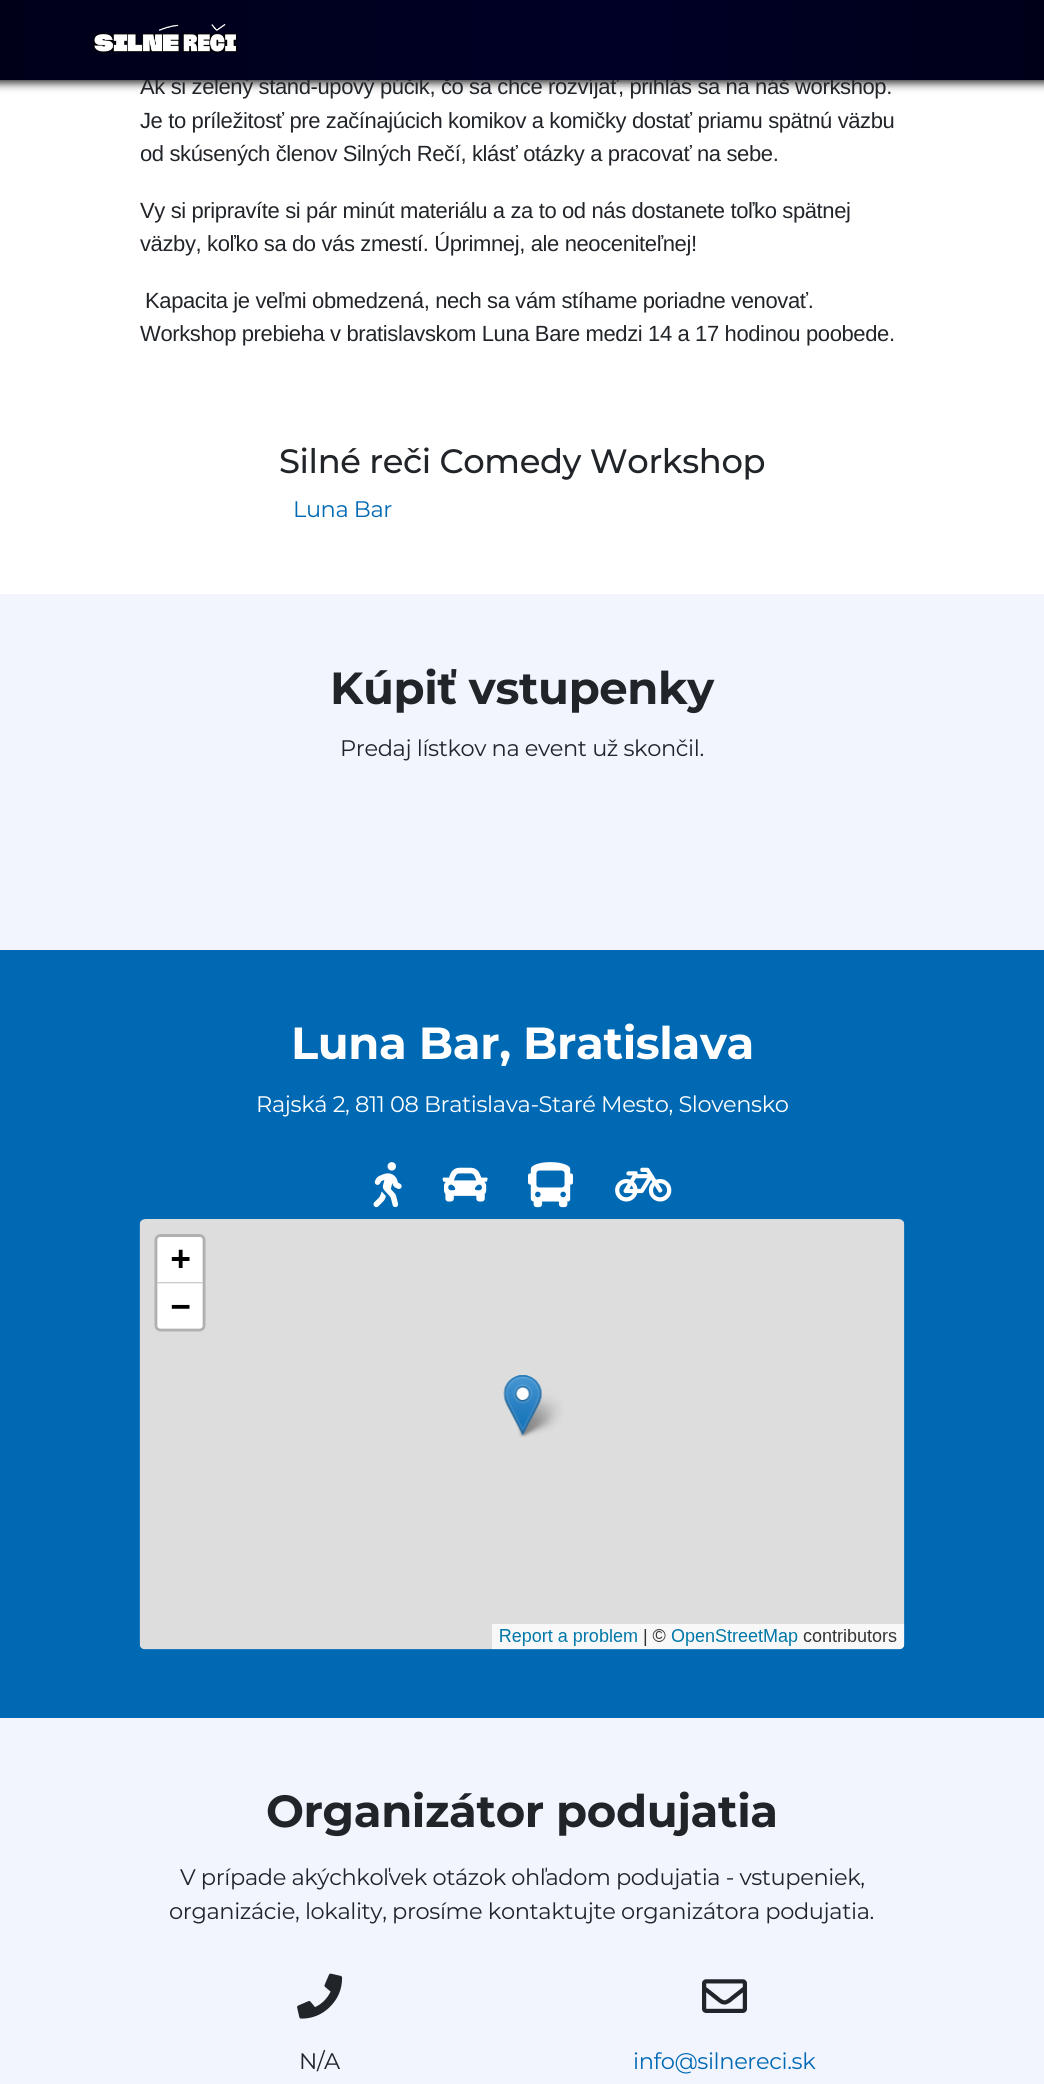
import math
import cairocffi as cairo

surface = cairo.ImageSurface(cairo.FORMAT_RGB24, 1044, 2084)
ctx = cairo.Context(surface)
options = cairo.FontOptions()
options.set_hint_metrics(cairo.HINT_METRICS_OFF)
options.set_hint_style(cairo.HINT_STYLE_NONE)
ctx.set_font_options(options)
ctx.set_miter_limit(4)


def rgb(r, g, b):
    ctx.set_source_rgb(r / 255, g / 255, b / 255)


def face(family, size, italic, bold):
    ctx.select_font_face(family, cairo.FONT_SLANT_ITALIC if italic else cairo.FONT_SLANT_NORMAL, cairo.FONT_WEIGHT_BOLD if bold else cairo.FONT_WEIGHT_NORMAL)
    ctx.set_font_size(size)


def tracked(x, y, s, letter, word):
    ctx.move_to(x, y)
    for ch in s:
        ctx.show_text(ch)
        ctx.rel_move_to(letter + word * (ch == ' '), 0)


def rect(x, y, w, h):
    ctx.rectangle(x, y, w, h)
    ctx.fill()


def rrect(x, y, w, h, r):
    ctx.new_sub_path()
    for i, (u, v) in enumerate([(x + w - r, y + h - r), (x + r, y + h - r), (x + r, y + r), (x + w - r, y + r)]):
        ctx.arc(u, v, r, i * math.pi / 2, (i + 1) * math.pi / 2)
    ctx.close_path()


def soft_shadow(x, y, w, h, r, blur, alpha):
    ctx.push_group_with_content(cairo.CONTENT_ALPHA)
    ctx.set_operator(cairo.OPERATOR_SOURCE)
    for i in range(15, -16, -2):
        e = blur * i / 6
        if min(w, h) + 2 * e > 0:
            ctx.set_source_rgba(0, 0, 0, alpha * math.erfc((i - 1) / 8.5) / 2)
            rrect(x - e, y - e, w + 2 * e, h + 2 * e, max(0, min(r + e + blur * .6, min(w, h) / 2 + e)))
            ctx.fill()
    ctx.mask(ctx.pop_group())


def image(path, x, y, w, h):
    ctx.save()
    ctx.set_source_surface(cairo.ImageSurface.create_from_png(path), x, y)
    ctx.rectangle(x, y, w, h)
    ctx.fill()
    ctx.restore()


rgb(255, 255, 255)
ctx.paint()
rgb(43, 43, 43)
soft_shadow(-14, -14, 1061, 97, 0, 4.5, 1)
face('Liberation Sans', 22, 0, 0)
rgb(33, 37, 41)
tracked(140, 94, 'Ak si zelený stand-upový púčik, čo sa chce rozvíjať, prihlás sa na náš workshop.', -0.38, 0)
gradient = cairo.LinearGradient(0, 40, 1044, 40)
gradient.add_color_stop_rgba(0, 0, 0, 0.098, 1)
gradient.add_color_stop_rgba(0.6, 0, 0, 0.153, 1)
gradient.add_color_stop_rgba(1, 0, 0, 0.098, 1)
ctx.set_source(gradient)
rect(0, 0, 1044, 80)
image('image0.png', 93, 23, 144, 30)
rgb(33, 37, 41)
tracked(140, 128, 'Je to príležitosť pre začínajúcich komikov a komičky dostať priamu spätnú väzbu', -0.38, 0)
tracked(140, 161, 'od skúsených členov Silných Rečí, klásť otázky a pracovať na sebe.', -0.38, 0)
tracked(140, 218, 'Vy si pripravíte si pár minút materiálu a za to od nás dostanete toľko spätnej', -0.38, 0)
tracked(140, 251, 'väzby, koľko sa do vás zmestí. Úprimnej, ale neoceniteľnej!', -0.38, 0)
tracked(145, 308, 'Kapacita je veľmi obmedzená, nech sa vám stíhame poriadne venovať.', -0.38, 0)
tracked(140, 341, 'Workshop prebieha v bratislavskom Luna Bare medzi 14 a 17 hodinou poobede.', -0.38, 0)
face('Montserrat Medium', 33.75, 0, 0)
tracked(279, 473, 'Silné reči Comedy Workshop', -0.38, 0)
face('Montserrat', 22.5, 0, 0)
rgb(0, 105, 180)
tracked(293, 517, 'Luna Bar', -0.38, 0)
rgb(242, 244, 254)
rect(0, 594, 1044, 356)
face('Montserrat', 45, 0, 1)
rgb(33, 37, 41)
tracked(330, 704, 'Kúpiť vstupenky', -0.38, 0)
face('Montserrat', 22.5, 0, 0)
tracked(340, 756, 'Predaj lístkov na event už skončil.', -0.38, 0)
rgb(0, 105, 180)
rect(0, 950, 1044, 768)
face('Montserrat', 45, 0, 1)
rgb(255, 255, 255)
tracked(291, 1059, 'Luna Bar, Bratislava', -0.38, 0)
face('Montserrat', 22.5, 0, 0)
tracked(256, 1112, 'Rajská 2, 811 08 Bratislava-Staré Mesto, Slovensko', -0.38, 0)
image('image1.png', 373, 1162, 29, 46)
image('image2.png', 442, 1167, 46, 35)
image('image3.png', 528, 1162, 45, 46)
image('image4.png', 615, 1167, 57, 35)
image('image5.png', 139, 1219, 766, 431)
rgb(242, 244, 254)
rect(0, 1718, 1044, 366)
face('Montserrat', 45, 0, 1)
rgb(33, 37, 41)
tracked(266, 1827, 'Organizátor podujatia', -0.38, 0)
face('Montserrat', 22.5, 0, 0)
tracked(180, 1885, 'V prípade akýchkoľvek otázok ohľadom podujatia - vstupeniek,', -0.38, 0)
tracked(169, 1919, 'organizácie, lokality, prosíme kontaktujte organizátora podujatia.', -0.38, 0)
image('image6.png', 297, 1973, 46, 46)
tracked(299, 2069, 'N/A', -0.38, 0)
image('image7.png', 702, 1979, 45, 34)
rgb(0, 105, 180)
tracked(633, 2069, 'info@silnereci.sk', -0.38, 0)
surface.write_to_png('render.png')
